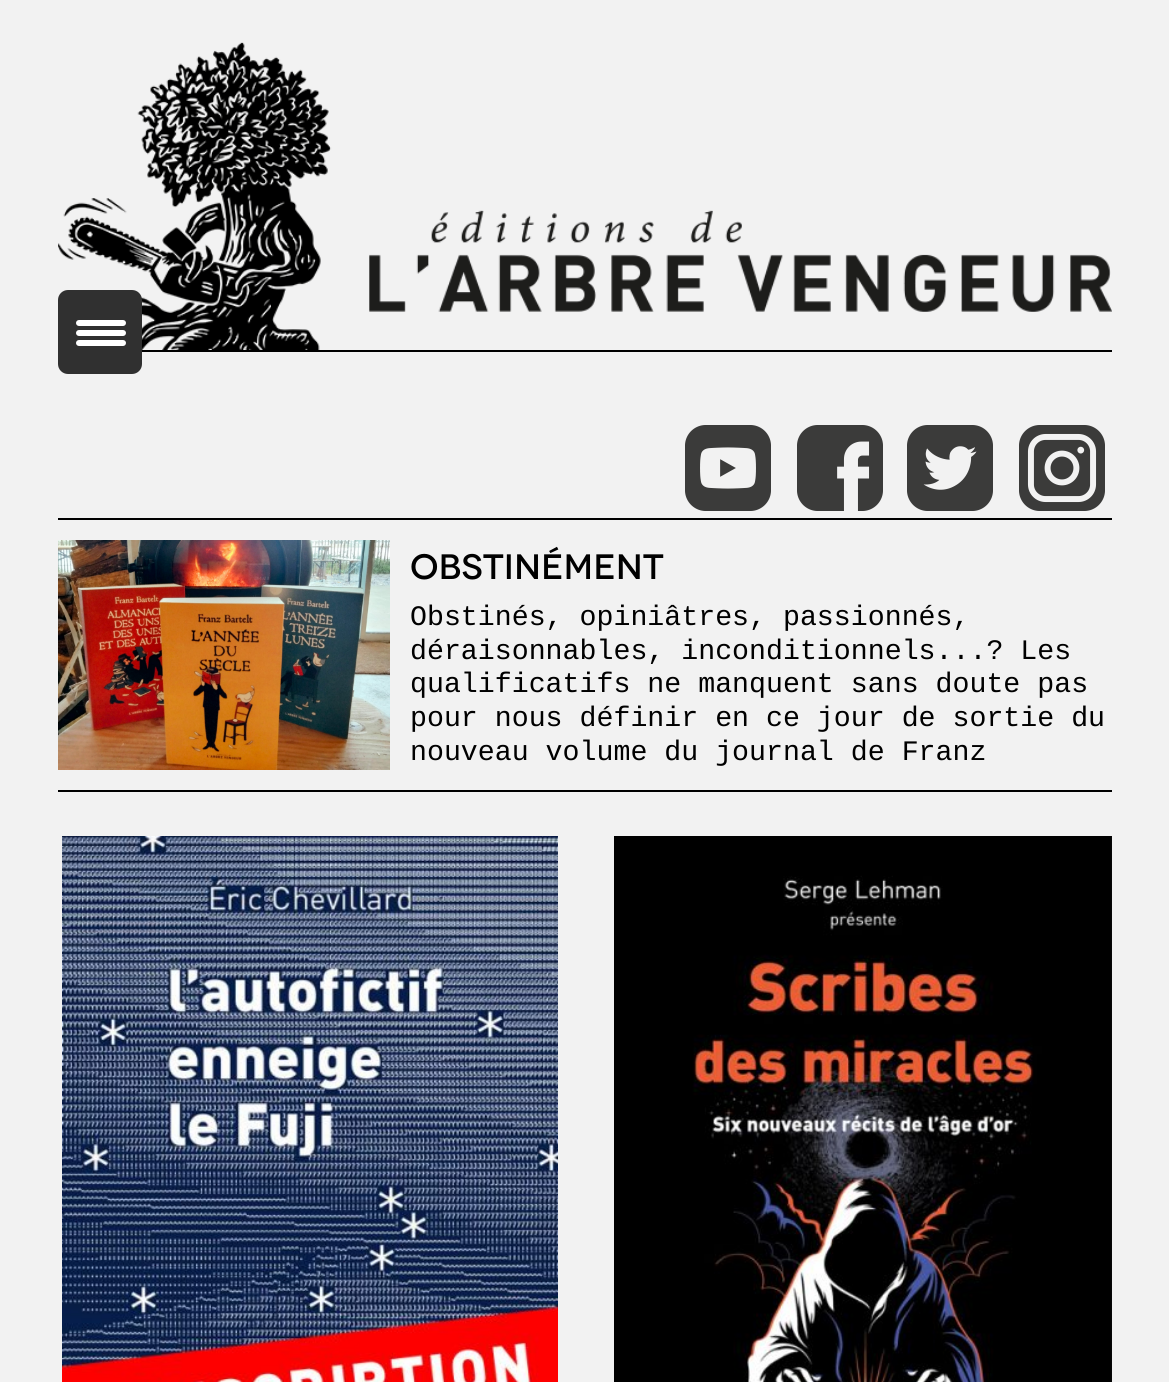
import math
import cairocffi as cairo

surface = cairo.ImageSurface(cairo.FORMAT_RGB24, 1169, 1382)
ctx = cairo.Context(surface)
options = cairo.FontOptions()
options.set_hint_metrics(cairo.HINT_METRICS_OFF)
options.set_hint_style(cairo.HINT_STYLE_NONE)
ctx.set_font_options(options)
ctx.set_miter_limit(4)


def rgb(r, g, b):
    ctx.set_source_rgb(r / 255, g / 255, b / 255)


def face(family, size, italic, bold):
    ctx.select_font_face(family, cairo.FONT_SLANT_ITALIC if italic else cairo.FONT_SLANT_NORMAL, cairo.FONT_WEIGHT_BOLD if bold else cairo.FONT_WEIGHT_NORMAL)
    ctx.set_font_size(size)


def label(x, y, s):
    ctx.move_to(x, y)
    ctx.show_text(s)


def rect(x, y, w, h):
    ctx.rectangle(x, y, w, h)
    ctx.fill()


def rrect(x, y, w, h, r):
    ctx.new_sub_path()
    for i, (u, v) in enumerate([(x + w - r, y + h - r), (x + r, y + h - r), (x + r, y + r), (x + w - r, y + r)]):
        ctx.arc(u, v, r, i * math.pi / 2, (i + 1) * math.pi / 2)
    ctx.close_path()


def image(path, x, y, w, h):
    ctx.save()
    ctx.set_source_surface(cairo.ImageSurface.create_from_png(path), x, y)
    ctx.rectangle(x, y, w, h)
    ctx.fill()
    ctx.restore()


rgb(242, 242, 242)
ctx.paint()
image('image0.png', 58, 42, 1054, 308)
rgb(48, 48, 48)
rrect(58, 290, 84, 84, 10)
ctx.fill()
rgb(255, 255, 255)
rrect(76, 330, 50, 6, 3)
ctx.fill()
rrect(76, 320, 50, 6, 3)
ctx.fill()
rrect(76, 340, 50, 6, 3)
ctx.fill()
rgb(0, 0, 0)
rect(142, 350, 970, 2)
image('image1.png', 685, 425, 86, 86)
image('image2.png', 797, 425, 86, 86)
image('image3.png', 907, 425, 86, 86)
image('image4.png', 1019, 425, 86, 86)
rect(58, 518, 1054, 2)
rect(58, 790, 1054, 2)
image('image5.png', 58, 540, 332, 230)
face('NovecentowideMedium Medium', 35.25, 0, 0)
label(410, 579, 'OBSTINÉMENT')
face('Liberation Mono', 28.25, 0, 0)
label(410, 625, 'Obstinés, opiniâtres, passionnés,')
label(410, 659, 'déraisonnables, inconditionnels...? Les')
label(410, 692, 'qualificatifs ne manquent sans doute pas')
label(410, 726, 'pour nous définir en ce jour de sortie du')
label(410, 760, 'nouveau volume du journal de Franz')
image('image6.png', 62, 836, 496, 546)
image('image7.png', 614, 836, 498, 546)
surface.write_to_png('render.png')
